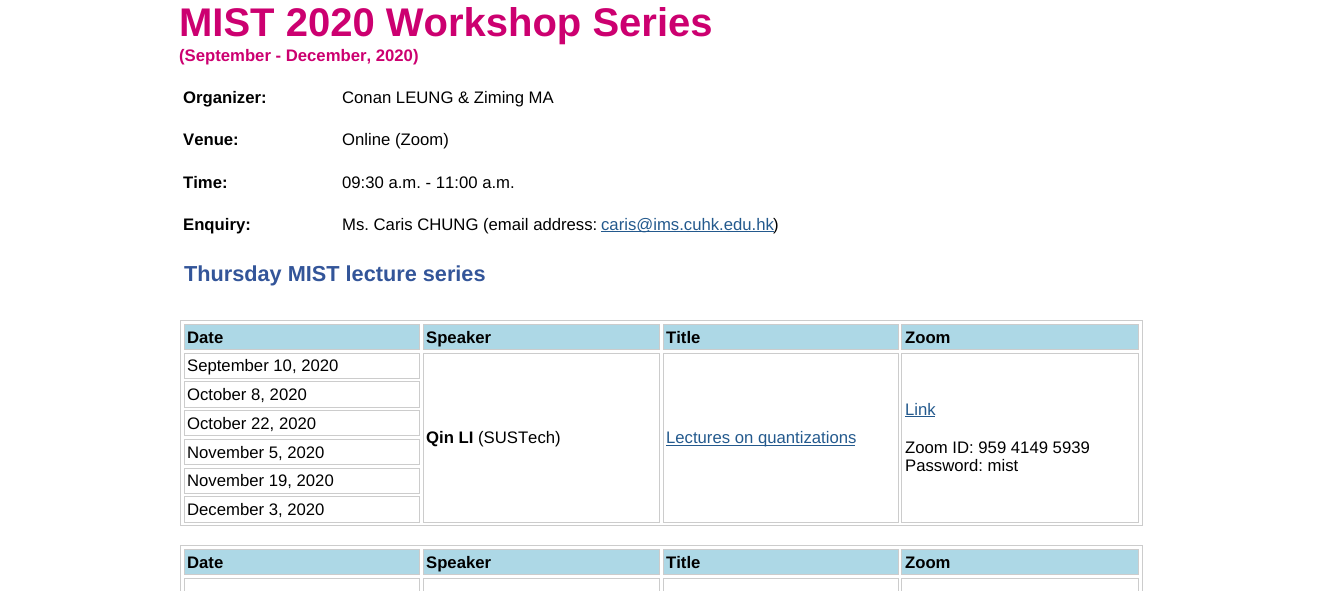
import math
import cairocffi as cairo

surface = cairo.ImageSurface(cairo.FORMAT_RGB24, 1321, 591)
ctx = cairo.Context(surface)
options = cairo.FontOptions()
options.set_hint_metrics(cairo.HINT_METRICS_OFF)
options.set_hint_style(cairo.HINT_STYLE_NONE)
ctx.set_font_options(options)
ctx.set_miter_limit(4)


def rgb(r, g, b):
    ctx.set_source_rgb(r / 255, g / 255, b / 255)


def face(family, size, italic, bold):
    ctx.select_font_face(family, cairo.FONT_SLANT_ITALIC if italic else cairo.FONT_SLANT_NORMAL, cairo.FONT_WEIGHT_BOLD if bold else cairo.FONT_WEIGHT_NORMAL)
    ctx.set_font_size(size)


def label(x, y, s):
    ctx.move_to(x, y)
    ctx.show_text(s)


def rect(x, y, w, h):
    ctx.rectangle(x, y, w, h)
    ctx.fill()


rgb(255, 255, 255)
ctx.paint()
face('Liberation Sans', 40, 0, 1)
rgb(204, 0, 112)
label(179, 36, 'MIST 2020 Workshop Series')
face('Liberation Sans', 16.7, 0, 1)
label(179, 61, '(September - December, 2020)')
rgb(0, 0, 0)
label(183, 103, 'Organizer:')
face('Liberation Sans', 16.7, 0, 0)
label(342, 103, 'Conan LEUNG & Ziming MA')
face('Liberation Sans', 16.7, 0, 1)
label(183, 145, 'Venue:')
face('Liberation Sans', 16.7, 0, 0)
label(342, 145, 'Online (Zoom)')
face('Liberation Sans', 16.7, 0, 1)
label(183, 188, 'Time:')
face('Liberation Sans', 16.7, 0, 0)
label(342, 188, '09:30 a.m. - 11:00 a.m.')
face('Liberation Sans', 16.7, 0, 1)
label(183, 230, 'Enquiry:')
face('Liberation Sans', 16.7, 0, 0)
label(342, 230, 'Ms. Caris CHUNG (email address:')
rgb(35, 89, 141)
rect(601, 231, 173, 1)
label(601, 230, 'caris@ims.cuhk.edu.hk')
rgb(0, 0, 0)
label(773, 230, ')')
face('Liberation Sans', 21.7, 0, 1)
rgb(51, 85, 153)
label(184, 281, 'Thursday MIST lecture series')
ctx.rectangle(180.5, 320.5, 962, 205)
rgb(204, 204, 204)
ctx.set_line_width(1)
ctx.stroke()
rgb(173, 216, 230)
ctx.rectangle(184.5, 324.5, 235, 25)
ctx.fill_preserve()
rgb(204, 204, 204)
ctx.stroke()
face('Liberation Sans', 16.7, 0, 1)
rgb(0, 0, 0)
label(187, 343, 'Date')
rgb(173, 216, 230)
ctx.rectangle(423.5, 324.5, 236, 25)
ctx.fill_preserve()
rgb(204, 204, 204)
ctx.stroke()
rgb(0, 0, 0)
label(426, 343, 'Speaker')
rgb(173, 216, 230)
ctx.rectangle(663.5, 324.5, 235, 25)
ctx.fill_preserve()
rgb(204, 204, 204)
ctx.stroke()
rgb(0, 0, 0)
label(666, 343, 'Title')
rgb(173, 216, 230)
ctx.rectangle(901.5, 324.5, 237, 25)
ctx.fill_preserve()
rgb(204, 204, 204)
ctx.stroke()
rgb(0, 0, 0)
label(905, 343, 'Zoom')
ctx.rectangle(184.5, 353.5, 235, 25)
rgb(204, 204, 204)
ctx.stroke()
face('Liberation Sans', 16.7, 0, 0)
rgb(0, 0, 0)
label(187, 371, 'September 10, 2020')
ctx.rectangle(423.5, 353.5, 236, 169)
rgb(204, 204, 204)
ctx.stroke()
face('Liberation Sans', 16.7, 0, 1)
rgb(0, 0, 0)
label(426, 443, 'Qin LI')
face('Liberation Sans', 16.7, 0, 0)
label(478, 443, '(SUSTech)')
ctx.rectangle(663.5, 353.5, 235, 169)
rgb(204, 204, 204)
ctx.stroke()
rgb(35, 89, 141)
rect(666, 445, 189, 1)
label(666, 443, 'Lectures on quantizations')
ctx.rectangle(901.5, 353.5, 237, 169)
rgb(204, 204, 204)
ctx.stroke()
rgb(35, 89, 141)
label(905, 415, 'Link')
rect(905, 416, 30, 1)
rgb(0, 0, 0)
label(905, 453, 'Zoom ID: 959 4149 5939')
label(905, 471, 'Password: mist')
ctx.rectangle(184.5, 381.5, 235, 26)
rgb(204, 204, 204)
ctx.stroke()
rgb(0, 0, 0)
label(187, 400, 'October 8, 2020')
ctx.rectangle(184.5, 410.5, 235, 25)
rgb(204, 204, 204)
ctx.stroke()
rgb(0, 0, 0)
label(187, 429, 'October 22, 2020')
ctx.rectangle(184.5, 439.5, 235, 25)
rgb(204, 204, 204)
ctx.stroke()
rgb(0, 0, 0)
label(187, 458, 'November 5, 2020')
ctx.rectangle(184.5, 468.5, 235, 25)
rgb(204, 204, 204)
ctx.stroke()
rgb(0, 0, 0)
label(187, 486, 'November 19, 2020')
ctx.rectangle(184.5, 496.5, 235, 26)
rgb(204, 204, 204)
ctx.stroke()
rgb(0, 0, 0)
label(187, 515, 'December 3, 2020')
ctx.rectangle(180.5, 545.5, 962, 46)
rgb(204, 204, 204)
ctx.stroke()
rgb(173, 216, 230)
ctx.rectangle(184.5, 549.5, 235, 25)
ctx.fill_preserve()
rgb(204, 204, 204)
ctx.stroke()
face('Liberation Sans', 16.7, 0, 1)
rgb(0, 0, 0)
label(187, 568, 'Date')
rgb(173, 216, 230)
ctx.rectangle(423.5, 549.5, 236, 25)
ctx.fill_preserve()
rgb(204, 204, 204)
ctx.stroke()
rgb(0, 0, 0)
label(426, 568, 'Speaker')
rgb(173, 216, 230)
ctx.rectangle(663.5, 549.5, 235, 25)
ctx.fill_preserve()
rgb(204, 204, 204)
ctx.stroke()
rgb(0, 0, 0)
label(666, 568, 'Title')
rgb(173, 216, 230)
ctx.rectangle(901.5, 549.5, 237, 25)
ctx.fill_preserve()
rgb(204, 204, 204)
ctx.stroke()
rgb(0, 0, 0)
label(905, 568, 'Zoom')
ctx.rectangle(184.5, 578.5, 235, 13)
rgb(204, 204, 204)
ctx.stroke()
ctx.rectangle(423.5, 578.5, 236, 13)
ctx.stroke()
ctx.rectangle(663.5, 578.5, 235, 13)
ctx.stroke()
ctx.rectangle(901.5, 578.5, 237, 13)
ctx.stroke()
surface.write_to_png('render.png')
